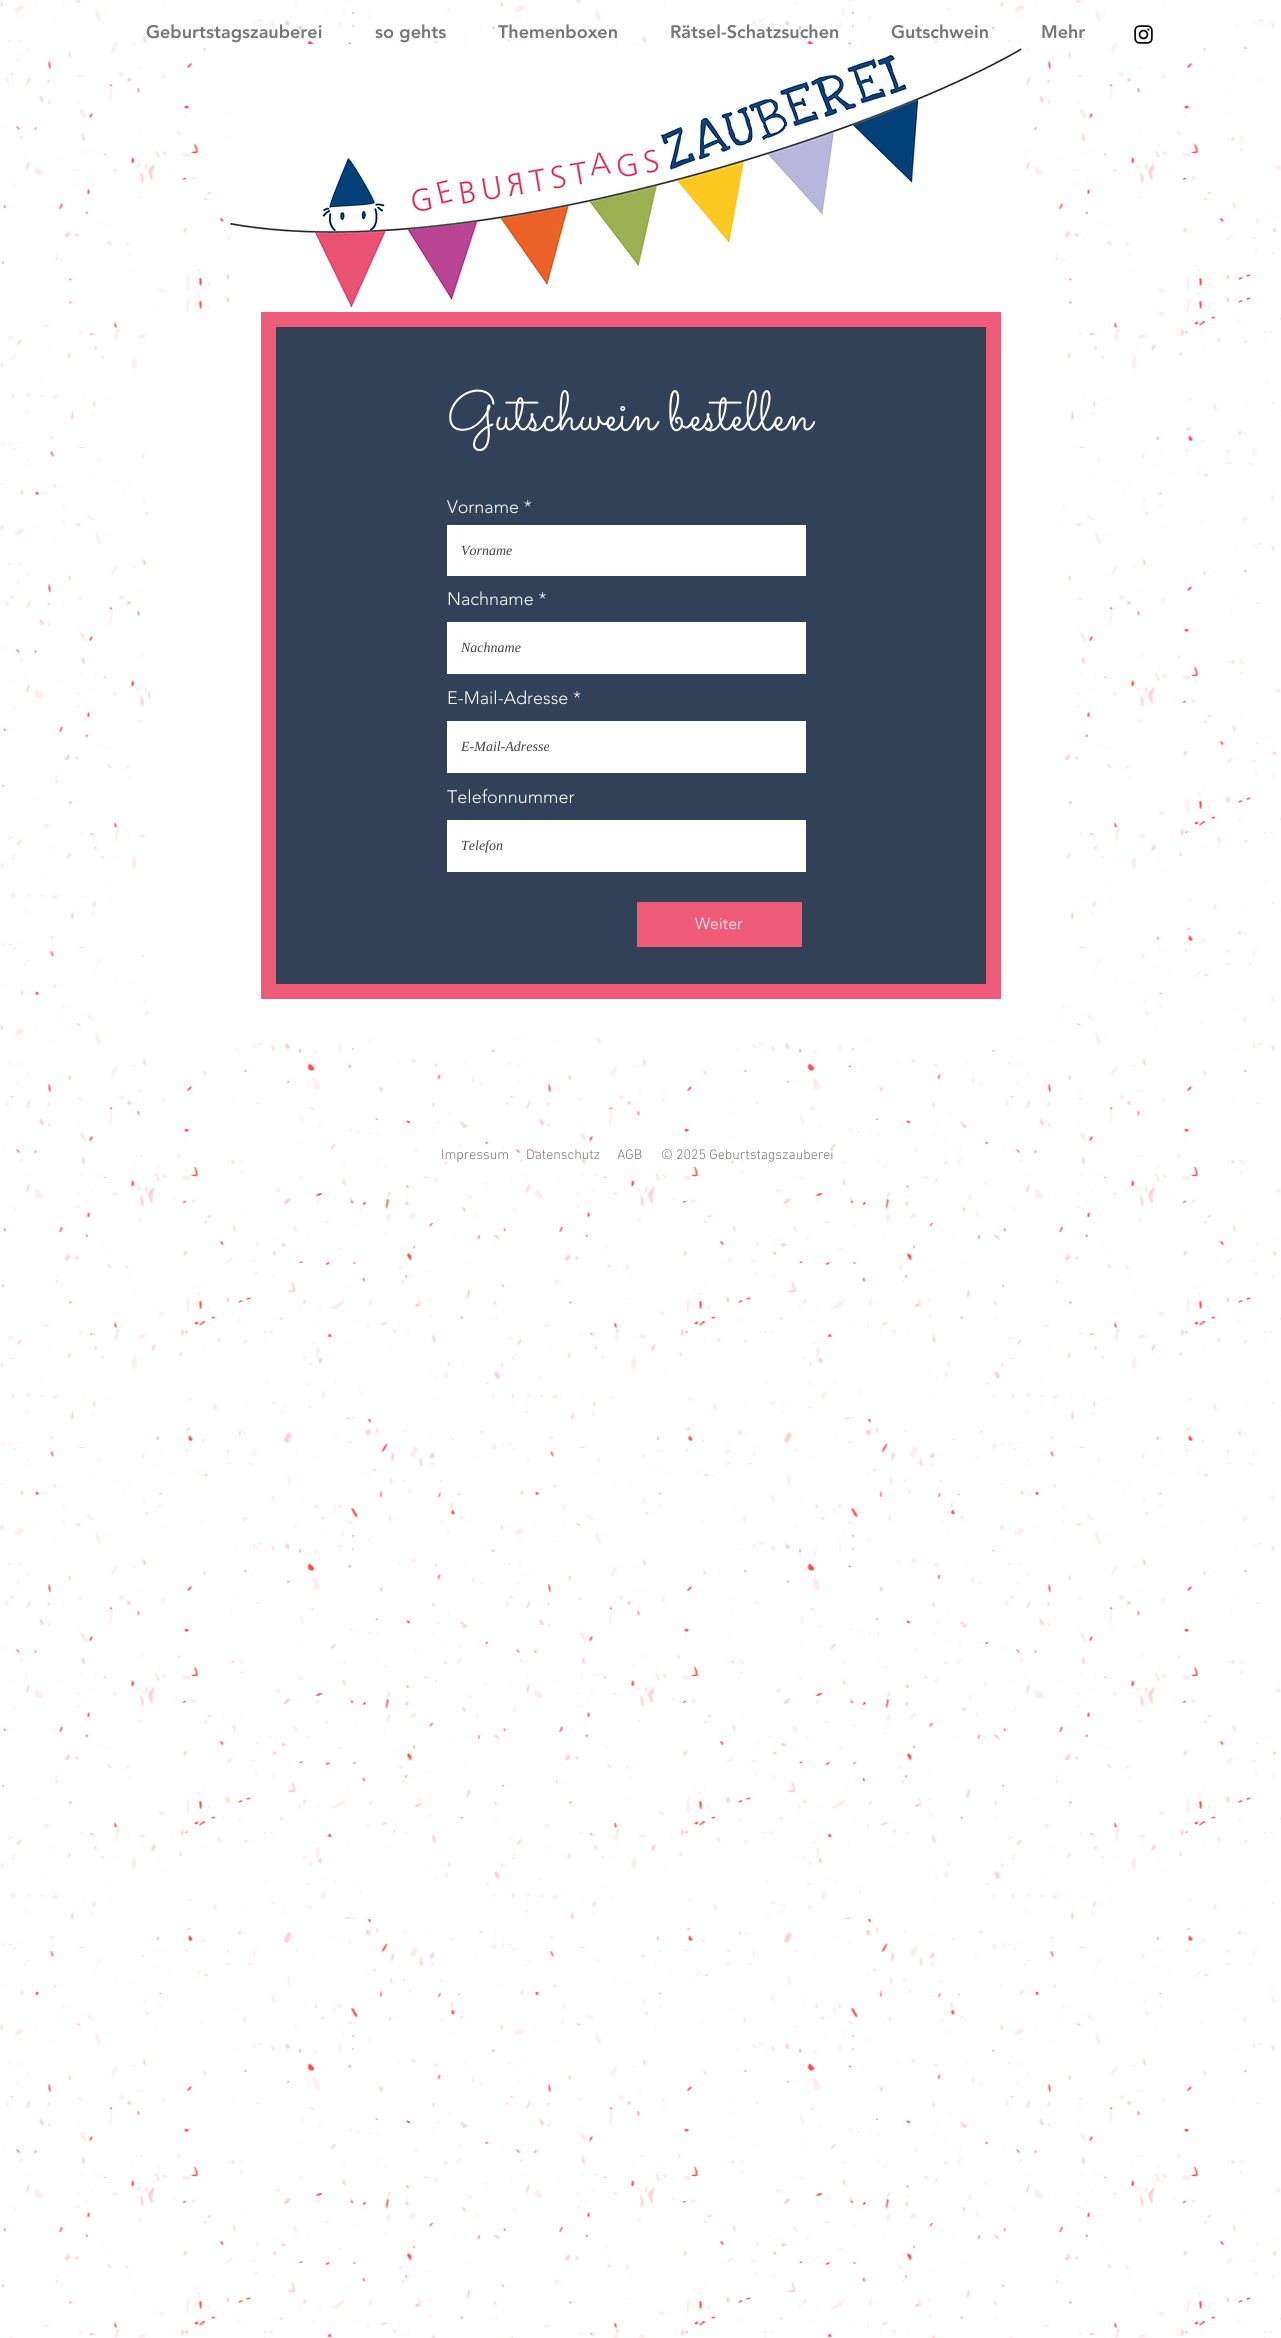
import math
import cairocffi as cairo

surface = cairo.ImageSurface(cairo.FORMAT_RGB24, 1281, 2338)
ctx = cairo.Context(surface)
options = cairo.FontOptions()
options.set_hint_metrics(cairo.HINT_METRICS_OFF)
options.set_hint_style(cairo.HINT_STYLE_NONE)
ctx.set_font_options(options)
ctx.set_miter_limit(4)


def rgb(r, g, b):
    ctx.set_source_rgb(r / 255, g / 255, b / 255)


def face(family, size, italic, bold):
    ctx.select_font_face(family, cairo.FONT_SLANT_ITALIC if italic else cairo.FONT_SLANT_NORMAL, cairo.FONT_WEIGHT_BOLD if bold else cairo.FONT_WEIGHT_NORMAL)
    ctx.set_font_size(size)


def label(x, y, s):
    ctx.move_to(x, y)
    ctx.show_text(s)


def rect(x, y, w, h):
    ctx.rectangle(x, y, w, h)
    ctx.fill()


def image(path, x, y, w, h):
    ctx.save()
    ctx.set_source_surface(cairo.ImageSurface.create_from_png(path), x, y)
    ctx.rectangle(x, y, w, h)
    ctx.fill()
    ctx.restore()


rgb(255, 255, 255)
ctx.paint()
image('image0.png', 0, 0, 1281, 293)
face('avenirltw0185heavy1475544 Black', 18, 0, 0)
rgb(118, 118, 118)
label(146, 38, 'Geburtstagszauberei')
label(375, 38, 'so gehts')
label(498, 38, 'Themenboxen')
label(670, 38, 'Rätsel-Schatzsuchen')
label(891, 38, 'Gutschwein')
label(1041, 38, 'Mehr')
image('image1.png', 1134, 25, 19, 19)
image('image3.png', 0, 293, 1281, 2045)
image('image2.png', 230, 44, 792, 268)
rgb(255, 255, 255)
rect(150, 312, 913, 726)
rgb(50, 65, 88)
ctx.rectangle(268.5, 319.5, 725, 672)
ctx.fill_preserve()
rgb(240, 91, 120)
ctx.set_line_width(15)
ctx.stroke()
face('Sacramento', 56, 0, 0)
rgb(255, 255, 255)
label(447, 430, 'Gutschwein bestellen')
face('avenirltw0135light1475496 Light', 18, 0, 0)
label(447, 513, 'Vorname *')
rect(447, 525, 359, 51)
face('Liberation Serif', 14, 1, 0)
rgb(65, 65, 65)
label(461, 555, 'Vorname')
face('avenirltw0135light1475496 Light', 18, 0, 0)
rgb(255, 255, 255)
label(447, 605, 'Nachname *')
rect(447, 622, 359, 52)
face('Liberation Serif', 14, 1, 0)
rgb(65, 65, 65)
label(461, 652, 'Nachname')
face('avenirltw0135light1475496 Light', 18, 0, 0)
rgb(255, 255, 255)
label(447, 704, 'E-Mail-Adresse *')
rect(447, 721, 359, 52)
face('Liberation Serif', 14, 1, 0)
rgb(65, 65, 65)
label(461, 751, 'E-Mail-Adresse')
face('avenirltw0135light1475496 Light', 18, 0, 0)
rgb(255, 255, 255)
label(447, 803, 'Telefonnummer')
rect(447, 820, 359, 52)
face('Liberation Serif', 14, 1, 0)
rgb(65, 65, 65)
label(461, 850, 'Telefon')
rgb(240, 91, 120)
rect(637, 902, 165, 45)
face('avenirltw0135light1475496 Light', 16, 0, 0)
rgb(255, 255, 255)
label(695, 929, 'Weiter')
face('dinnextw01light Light', 14, 0, 0)
rgb(118, 118, 118)
label(441, 1159, 'Impressum')
label(526, 1159, 'Datenschutz')
label(617, 1159, 'AGB')
label(661, 1159, '© 2025 Geburtstagszauberei')
surface.write_to_png('render.png')
